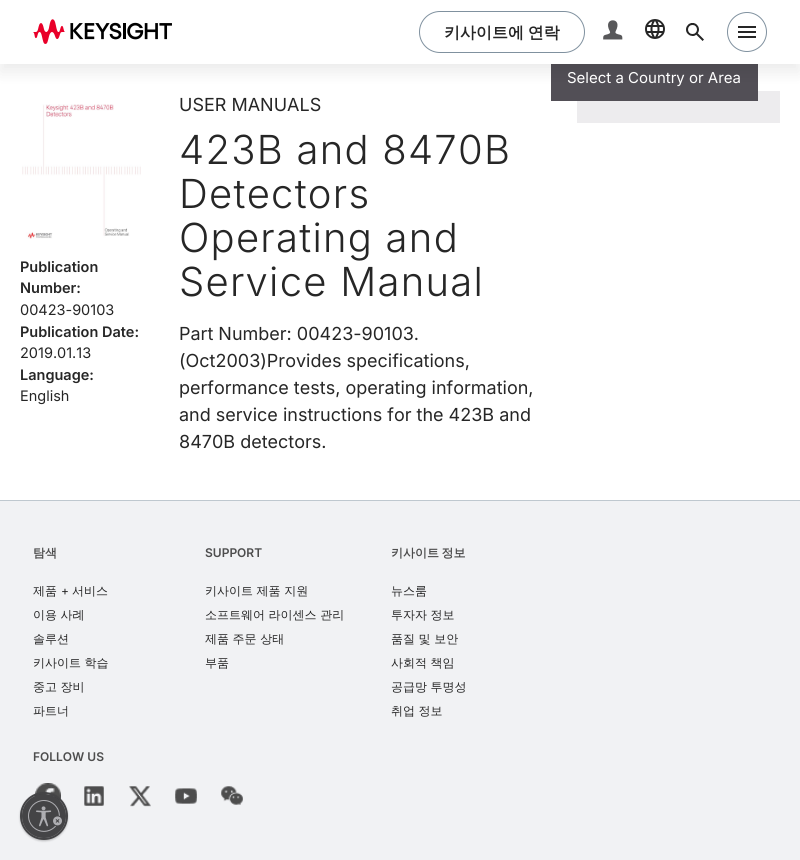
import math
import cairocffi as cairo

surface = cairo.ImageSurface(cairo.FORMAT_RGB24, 800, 860)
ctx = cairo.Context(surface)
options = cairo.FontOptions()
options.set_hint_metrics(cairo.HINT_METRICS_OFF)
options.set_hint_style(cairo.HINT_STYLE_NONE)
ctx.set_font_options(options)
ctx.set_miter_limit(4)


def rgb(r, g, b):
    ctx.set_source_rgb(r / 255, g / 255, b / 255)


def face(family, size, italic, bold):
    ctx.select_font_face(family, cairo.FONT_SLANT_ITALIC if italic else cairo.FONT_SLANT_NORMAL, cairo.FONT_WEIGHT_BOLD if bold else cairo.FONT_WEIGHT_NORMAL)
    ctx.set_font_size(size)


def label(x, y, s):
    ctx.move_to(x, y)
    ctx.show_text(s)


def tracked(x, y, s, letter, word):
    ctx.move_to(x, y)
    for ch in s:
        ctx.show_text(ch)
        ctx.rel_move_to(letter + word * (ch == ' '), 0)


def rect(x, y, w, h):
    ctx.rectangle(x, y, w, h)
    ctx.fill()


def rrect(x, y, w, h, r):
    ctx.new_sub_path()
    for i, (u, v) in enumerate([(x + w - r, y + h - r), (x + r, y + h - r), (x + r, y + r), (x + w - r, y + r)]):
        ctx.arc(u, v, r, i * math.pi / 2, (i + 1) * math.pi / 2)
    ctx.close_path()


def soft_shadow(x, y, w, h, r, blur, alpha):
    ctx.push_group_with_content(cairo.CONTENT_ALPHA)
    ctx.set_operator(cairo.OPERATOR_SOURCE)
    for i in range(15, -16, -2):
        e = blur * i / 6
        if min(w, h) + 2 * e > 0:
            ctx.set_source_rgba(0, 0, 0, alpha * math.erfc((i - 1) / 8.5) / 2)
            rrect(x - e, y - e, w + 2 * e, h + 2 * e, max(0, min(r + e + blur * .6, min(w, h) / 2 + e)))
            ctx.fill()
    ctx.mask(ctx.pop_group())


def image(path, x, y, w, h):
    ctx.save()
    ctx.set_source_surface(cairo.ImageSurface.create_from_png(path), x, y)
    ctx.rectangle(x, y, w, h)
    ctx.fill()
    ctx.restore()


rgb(255, 255, 255)
ctx.paint()
rgb(237, 236, 238)
rect(577, 91, 203, 32)
rgb(82, 79, 86)
rect(551, 64, 207, 37)
rgb(0, 0, 0)
soft_shadow(0, 8, 800, 64, 0, 8, 0.08)
rgb(255, 255, 255)
rect(0, 0, 800, 64)
image('image0.png', 33, 19, 139, 25)
rrect(419.5, 11.5, 165, 41, 20.5)
rgb(128, 145, 159)
ctx.set_line_width(1)
ctx.stroke()
face('WenQuanYi Zen Hei', 16, 0, 1)
rgb(38, 38, 38)
tracked(444, 38, '키사이트에 연락', 0, -1)
image('image1.png', 603, 20, 20, 20)
image('image2.png', 645, 19, 20, 20)
image('image3.png', 686, 23, 18, 18)
ctx.arc(747, 32, 19.5, 0, 2 * math.pi)
rgb(128, 145, 159)
ctx.stroke()
image('image4.png', 738, 26, 18, 12)
image('image5.png', 22, 104, 119, 135)
face('Inter SemiBold', 14.5, 0, 0)
rgb(38, 38, 38)
label(20, 272, 'Publication')
label(20, 293, 'Number:')
face('Inter', 14.5, 0, 0)
label(20, 315, '00423-90103')
face('Inter SemiBold', 14.5, 0, 0)
label(20, 337, 'Publication Date:')
face('Inter', 14.5, 0, 0)
label(20, 358, '2019.01.13')
face('Inter SemiBold', 14.5, 0, 0)
label(20, 380, 'Language:')
face('Inter', 14.5, 0, 0)
label(20, 401, 'English')
face('Inter', 18, 0, 0)
label(179, 111, 'USER MANUALS')
face('Inter Light', 40, 0, 0)
tracked(179, 164, '423B and 8470B', 1.25, 0)
tracked(179, 208, 'Detectors', 1.25, 0)
tracked(179, 252, 'Operating and', 1.25, 0)
tracked(179, 296, 'Service Manual', 1.25, 0)
face('Inter', 18, 0, 0)
label(179, 340, 'Part Number: 00423-90103.')
label(179, 367, '(Oct2003)Provides specifications,')
label(179, 394, 'performance tests, operating information,')
label(179, 421, 'and service instructions for the 423B and')
label(179, 448, '8470B detectors.')
rgb(241, 242, 244)
rect(0, 501, 800, 359)
rgb(191, 200, 207)
rect(0, 500, 800, 1)
face('WenQuanYi Zen Hei', 12, 0, 1)
rgb(77, 77, 77)
label(33, 557, '탐색')
face('WenQuanYi Zen Hei Medium', 12, 0, 0)
rgb(38, 38, 38)
label(33, 595, '제품')
face('Inter', 12, 0, 0)
label(61, 595, '+')
face('WenQuanYi Zen Hei Medium', 12, 0, 0)
label(72, 595, '서비스')
label(33, 619, '이용 사례')
label(33, 643, '솔루션')
label(33, 667, '키사이트 학습')
label(33, 691, '중고 장비')
label(33, 715, '파트너')
face('Inter SemiBold', 12, 0, 0)
rgb(77, 77, 77)
label(205, 557, 'SUPPORT')
face('WenQuanYi Zen Hei Medium', 12, 0, 0)
rgb(38, 38, 38)
label(205, 595, '키사이트 제품 지원')
label(205, 619, '소프트웨어 라이센스 관리')
label(205, 643, '제품 주문 상태')
label(205, 667, '부품')
face('WenQuanYi Zen Hei', 12, 0, 1)
rgb(77, 77, 77)
tracked(391, 557, '키사이트 정보', 0, -1)
face('WenQuanYi Zen Hei Medium', 12, 0, 0)
rgb(38, 38, 38)
label(391, 595, '뉴스룸')
label(391, 619, '투자자 정보')
label(391, 643, '품질 및 보안')
label(391, 667, '사회적 책임')
label(391, 691, '공급망 투명성')
label(391, 715, '취업 정보')
face('Inter SemiBold', 12, 0, 0)
rgb(77, 77, 77)
label(33, 761, 'FOLLOW US')
image('image6.png', 35, 783, 26, 19)
image('image7.png', 84, 786, 20, 20)
image('image8.png', 129, 786, 22, 21)
image('image9.png', 175, 788, 22, 16)
image('image10.png', 221, 786, 22, 19)
face('Inter', 15, 0, 0)
rgb(255, 255, 255)
label(567, 83, 'Select a Country or Area')
rgb(0, 0, 0)
soft_shadow(20, 793, 48, 48, 24, 1, 0.24)
ctx.arc(44, 816, 23, 0, 2 * math.pi)
rgb(68, 68, 70)
ctx.set_line_width(2)
ctx.stroke()
ctx.save()
rrect(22, 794, 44, 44, 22)
ctx.clip()
rgb(0, 0, 0)
soft_shadow(22, 795, 44, 44, 22, 1, 0.24)
ctx.restore()
ctx.arc(44, 816, 22, 0, 2 * math.pi)
ctx.fill()
image('image11.png', 28, 800, 34, 32)
surface.write_to_png('render.png')
